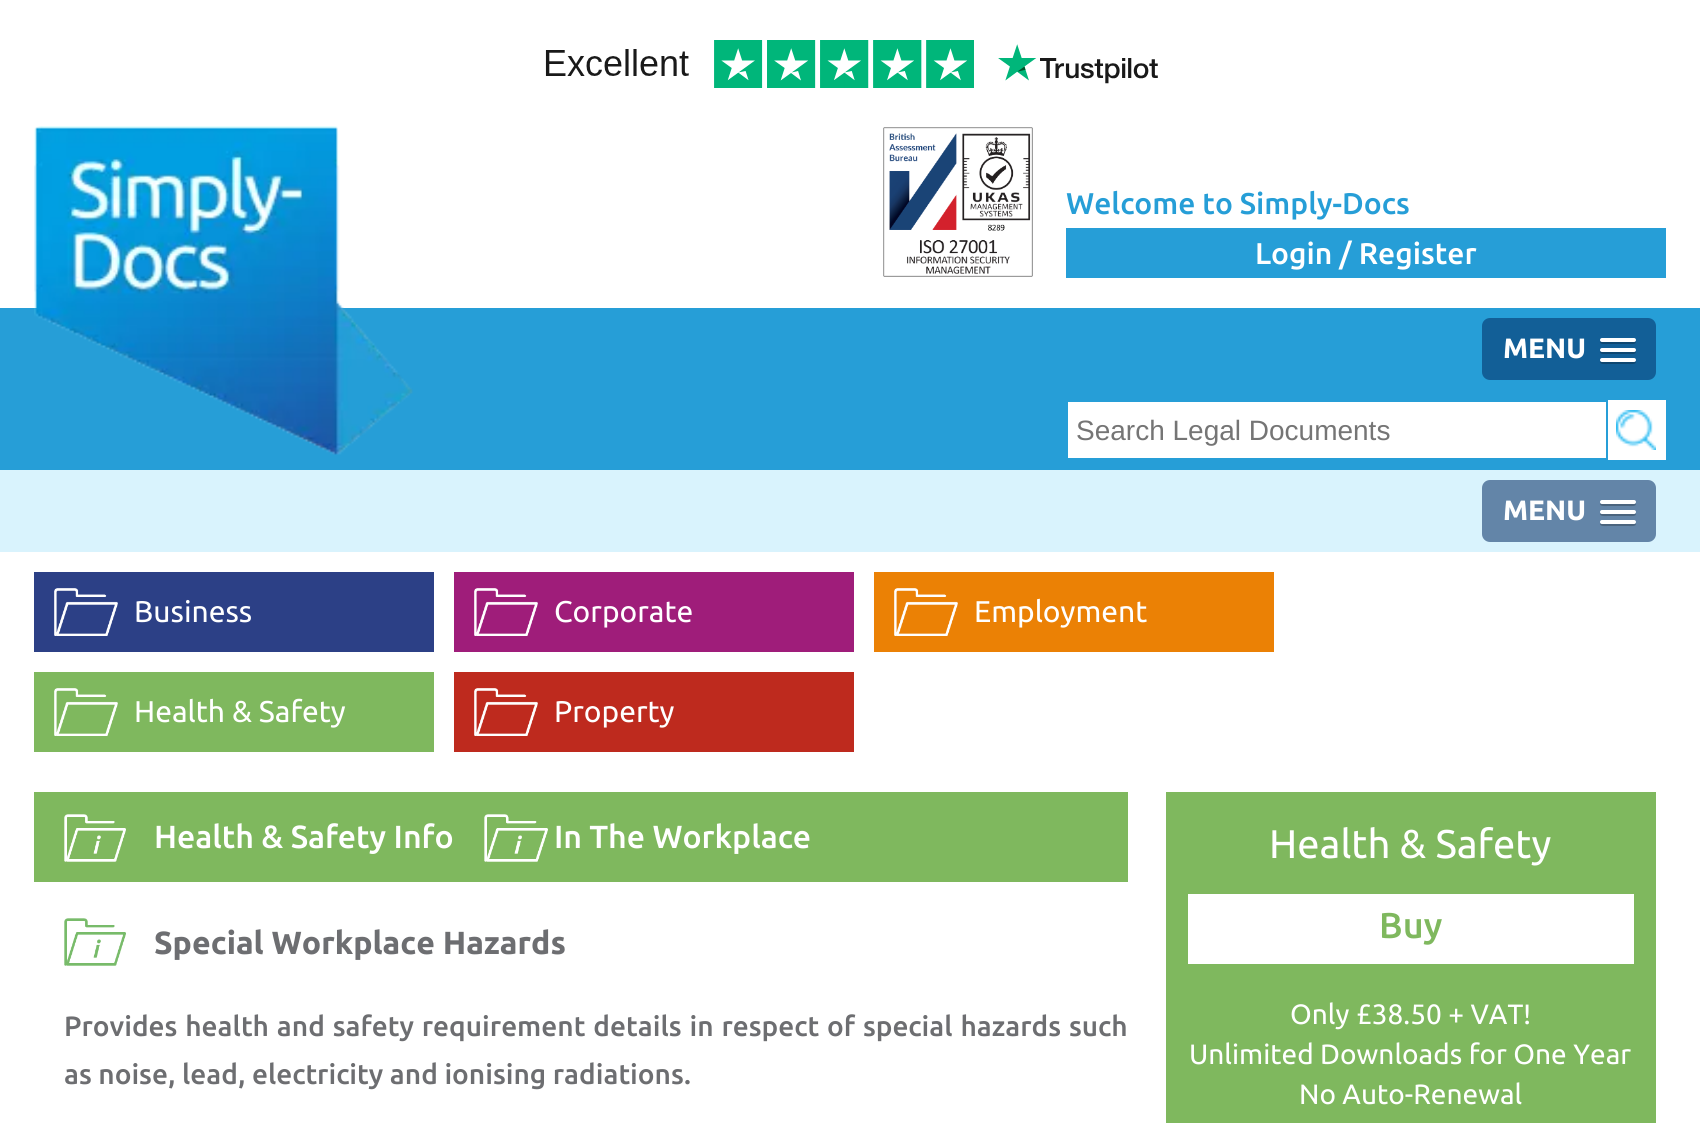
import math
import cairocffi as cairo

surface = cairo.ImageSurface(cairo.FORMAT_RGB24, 1700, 1123)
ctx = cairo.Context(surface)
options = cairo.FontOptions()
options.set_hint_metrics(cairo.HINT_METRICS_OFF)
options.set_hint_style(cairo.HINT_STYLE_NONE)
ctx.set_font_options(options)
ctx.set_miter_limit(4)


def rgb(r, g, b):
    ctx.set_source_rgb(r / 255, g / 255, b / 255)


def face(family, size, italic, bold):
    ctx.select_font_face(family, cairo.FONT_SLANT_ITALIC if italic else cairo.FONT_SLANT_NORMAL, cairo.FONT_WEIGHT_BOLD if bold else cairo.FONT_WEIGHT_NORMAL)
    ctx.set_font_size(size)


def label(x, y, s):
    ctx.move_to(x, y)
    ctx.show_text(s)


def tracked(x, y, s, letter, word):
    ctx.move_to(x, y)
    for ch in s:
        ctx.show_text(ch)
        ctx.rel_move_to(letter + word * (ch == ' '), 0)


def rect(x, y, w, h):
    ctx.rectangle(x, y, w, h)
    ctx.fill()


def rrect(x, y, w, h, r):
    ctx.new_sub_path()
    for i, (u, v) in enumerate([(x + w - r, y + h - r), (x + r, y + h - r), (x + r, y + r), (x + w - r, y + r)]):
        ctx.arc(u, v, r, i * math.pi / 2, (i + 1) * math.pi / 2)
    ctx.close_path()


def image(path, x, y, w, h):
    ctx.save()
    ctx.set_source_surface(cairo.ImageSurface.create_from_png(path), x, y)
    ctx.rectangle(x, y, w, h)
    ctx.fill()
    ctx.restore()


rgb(255, 255, 255)
ctx.paint()
image('image0.png', 545, 40, 613, 48)
rgb(38, 158, 215)
rect(0, 308, 1700, 162)
image('image1.png', 34, 126, 379, 329)
image('image2.png', 883, 127, 150, 150)
face('Ubuntu Medium', 30, 0, 0)
label(1066, 214, 'Welcome to Simply-Docs')
rect(1066, 228, 600, 50)
rgb(255, 255, 255)
label(1255, 264, 'Login / Register')
rgb(18, 95, 151)
rrect(1482, 318, 174, 62, 8)
ctx.fill()
face('Ubuntu', 28, 0, 1)
rgb(255, 255, 255)
label(1503, 358, 'MENU')
rgb(14, 71, 113)
ctx.new_path()
ctx.move_to(1600.5, 341)
ctx.curve_to(1598, 345, 1607, 344, 1607.5, 344)
ctx.line_to(1628.5, 344)
ctx.curve_to(1629, 344, 1638, 345, 1635.5, 341)
ctx.curve_to(1635.5, 341.5, 1634.5, 342, 1634, 342)
ctx.line_to(1602, 342)
ctx.curve_to(1601.5, 342, 1600.5, 341.5, 1600.5, 341)
ctx.close_path()
ctx.fill()
rgb(255, 255, 255)
rrect(1600, 338, 36, 4, 2)
ctx.fill()
rgb(14, 71, 113)
ctx.new_path()
ctx.move_to(1600.5, 351)
ctx.curve_to(1598, 355, 1607, 354, 1607.5, 354)
ctx.line_to(1628.5, 354)
ctx.curve_to(1629, 354, 1638, 355, 1635.5, 351)
ctx.curve_to(1635.5, 351.5, 1634.5, 352, 1634, 352)
ctx.line_to(1602, 352)
ctx.curve_to(1601.5, 352, 1600.5, 351.5, 1600.5, 351)
ctx.close_path()
ctx.fill()
rgb(255, 255, 255)
rrect(1600, 348, 36, 4, 2)
ctx.fill()
rgb(14, 71, 113)
ctx.new_path()
ctx.move_to(1600.5, 361)
ctx.curve_to(1598, 365, 1607, 364, 1607.5, 364)
ctx.line_to(1628.5, 364)
ctx.curve_to(1629, 364, 1638, 365, 1635.5, 361)
ctx.curve_to(1635.5, 361.5, 1634.5, 362, 1634, 362)
ctx.line_to(1602, 362)
ctx.curve_to(1601.5, 362, 1600.5, 361.5, 1600.5, 361)
ctx.close_path()
ctx.fill()
rgb(255, 255, 255)
rrect(1600, 358, 36, 4, 2)
ctx.fill()
rect(1068, 400, 598, 60)
ctx.rectangle(1067, 401, 540, 58)
rgb(38, 158, 215)
ctx.stroke()
face('Liberation Sans', 28, 0, 0)
rgb(117, 117, 117)
label(1076, 440, 'Search Legal Documents')
image('image3.png', 1616, 410, 40, 40)
rgb(217, 243, 253)
rect(0, 470, 1700, 82)
rgb(99, 133, 168)
rrect(1482, 480, 174, 62, 8)
ctx.fill()
face('Ubuntu', 28, 0, 1)
rgb(255, 255, 255)
label(1503, 520, 'MENU')
rgb(74, 100, 126)
ctx.new_path()
ctx.move_to(1600.5, 503)
ctx.curve_to(1598, 507, 1607, 506, 1607.5, 506)
ctx.line_to(1628.5, 506)
ctx.curve_to(1629, 506, 1638, 507, 1635.5, 503)
ctx.curve_to(1635.5, 503.5, 1634.5, 504, 1634, 504)
ctx.line_to(1602, 504)
ctx.curve_to(1601.5, 504, 1600.5, 503.5, 1600.5, 503)
ctx.close_path()
ctx.fill()
rgb(255, 255, 255)
rrect(1600, 500, 36, 4, 2)
ctx.fill()
rgb(74, 100, 126)
ctx.new_path()
ctx.move_to(1600.5, 513)
ctx.curve_to(1598, 517, 1607, 516, 1607.5, 516)
ctx.line_to(1628.5, 516)
ctx.curve_to(1629, 516, 1638, 517, 1635.5, 513)
ctx.curve_to(1635.5, 513.5, 1634.5, 514, 1634, 514)
ctx.line_to(1602, 514)
ctx.curve_to(1601.5, 514, 1600.5, 513.5, 1600.5, 513)
ctx.close_path()
ctx.fill()
rgb(255, 255, 255)
rrect(1600, 510, 36, 4, 2)
ctx.fill()
rgb(74, 100, 126)
ctx.new_path()
ctx.move_to(1600.5, 523)
ctx.curve_to(1598, 527, 1607, 526, 1607.5, 526)
ctx.line_to(1628.5, 526)
ctx.curve_to(1629, 526, 1638, 527, 1635.5, 523)
ctx.curve_to(1635.5, 523.5, 1634.5, 524, 1634, 524)
ctx.line_to(1602, 524)
ctx.curve_to(1601.5, 524, 1600.5, 523.5, 1600.5, 523)
ctx.close_path()
ctx.fill()
rgb(255, 255, 255)
rrect(1600, 520, 36, 4, 2)
ctx.fill()
rgb(44, 64, 134)
rect(34, 572, 400, 80)
image('image4.png', 54, 588, 64, 48)
face('Ubuntu', 30, 0, 0)
rgb(255, 255, 255)
label(134, 622, 'Business')
rgb(159, 29, 122)
rect(454, 572, 400, 80)
image('image5.png', 474, 588, 64, 48)
rgb(255, 255, 255)
label(554, 622, 'Corporate')
rgb(235, 129, 5)
rect(874, 572, 400, 80)
image('image6.png', 894, 588, 64, 48)
rgb(255, 255, 255)
label(974, 622, 'Employment')
rgb(127, 184, 94)
rect(34, 672, 400, 80)
image('image7.png', 54, 688, 64, 48)
rgb(255, 255, 255)
label(134, 722, 'Health & Safety')
rgb(190, 42, 30)
rect(454, 672, 400, 80)
image('image8.png', 474, 688, 64, 48)
rgb(255, 255, 255)
label(554, 722, 'Property')
rgb(127, 184, 94)
rect(34, 792, 1094, 90)
image('image9.png', 64, 814, 62, 48)
face('Ubuntu Medium', 32, 0, 0)
rgb(255, 255, 255)
label(154, 848, 'Health & Safety Info')
image('image10.png', 484, 814, 64, 48)
label(554, 848, 'In The Workplace')
image('image11.png', 64, 918, 62, 48)
face('Ubuntu', 32, 0, 1)
rgb(109, 110, 113)
label(154, 954, 'Special Workplace Hazards')
face('Ubuntu Medium', 28, 0, 0)
tracked(64, 1036, 'Provides health and safety requirement details in respect of special hazards such', 0, 1.4)
label(64, 1084, 'as noise, lead, electricity and ionising radiations.')
ctx.rectangle(1167, 793, 488, 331)
rgb(127, 184, 94)
ctx.stroke()
rect(1168, 794, 486, 329)
face('Ubuntu', 40, 0, 0)
rgb(255, 255, 255)
label(1269, 858, 'Health & Safety')
rect(1188, 894, 446, 70)
face('Ubuntu Medium', 36, 0, 0)
rgb(127, 184, 94)
label(1379, 938, 'Buy')
face('Ubuntu', 28, 0, 0)
rgb(255, 255, 255)
label(1290, 1024, 'Only £38.50 + VAT!')
label(1189, 1064, 'Unlimited Downloads for One Year')
label(1299, 1104, 'No Auto-Renewal')
surface.write_to_png('render.png')
